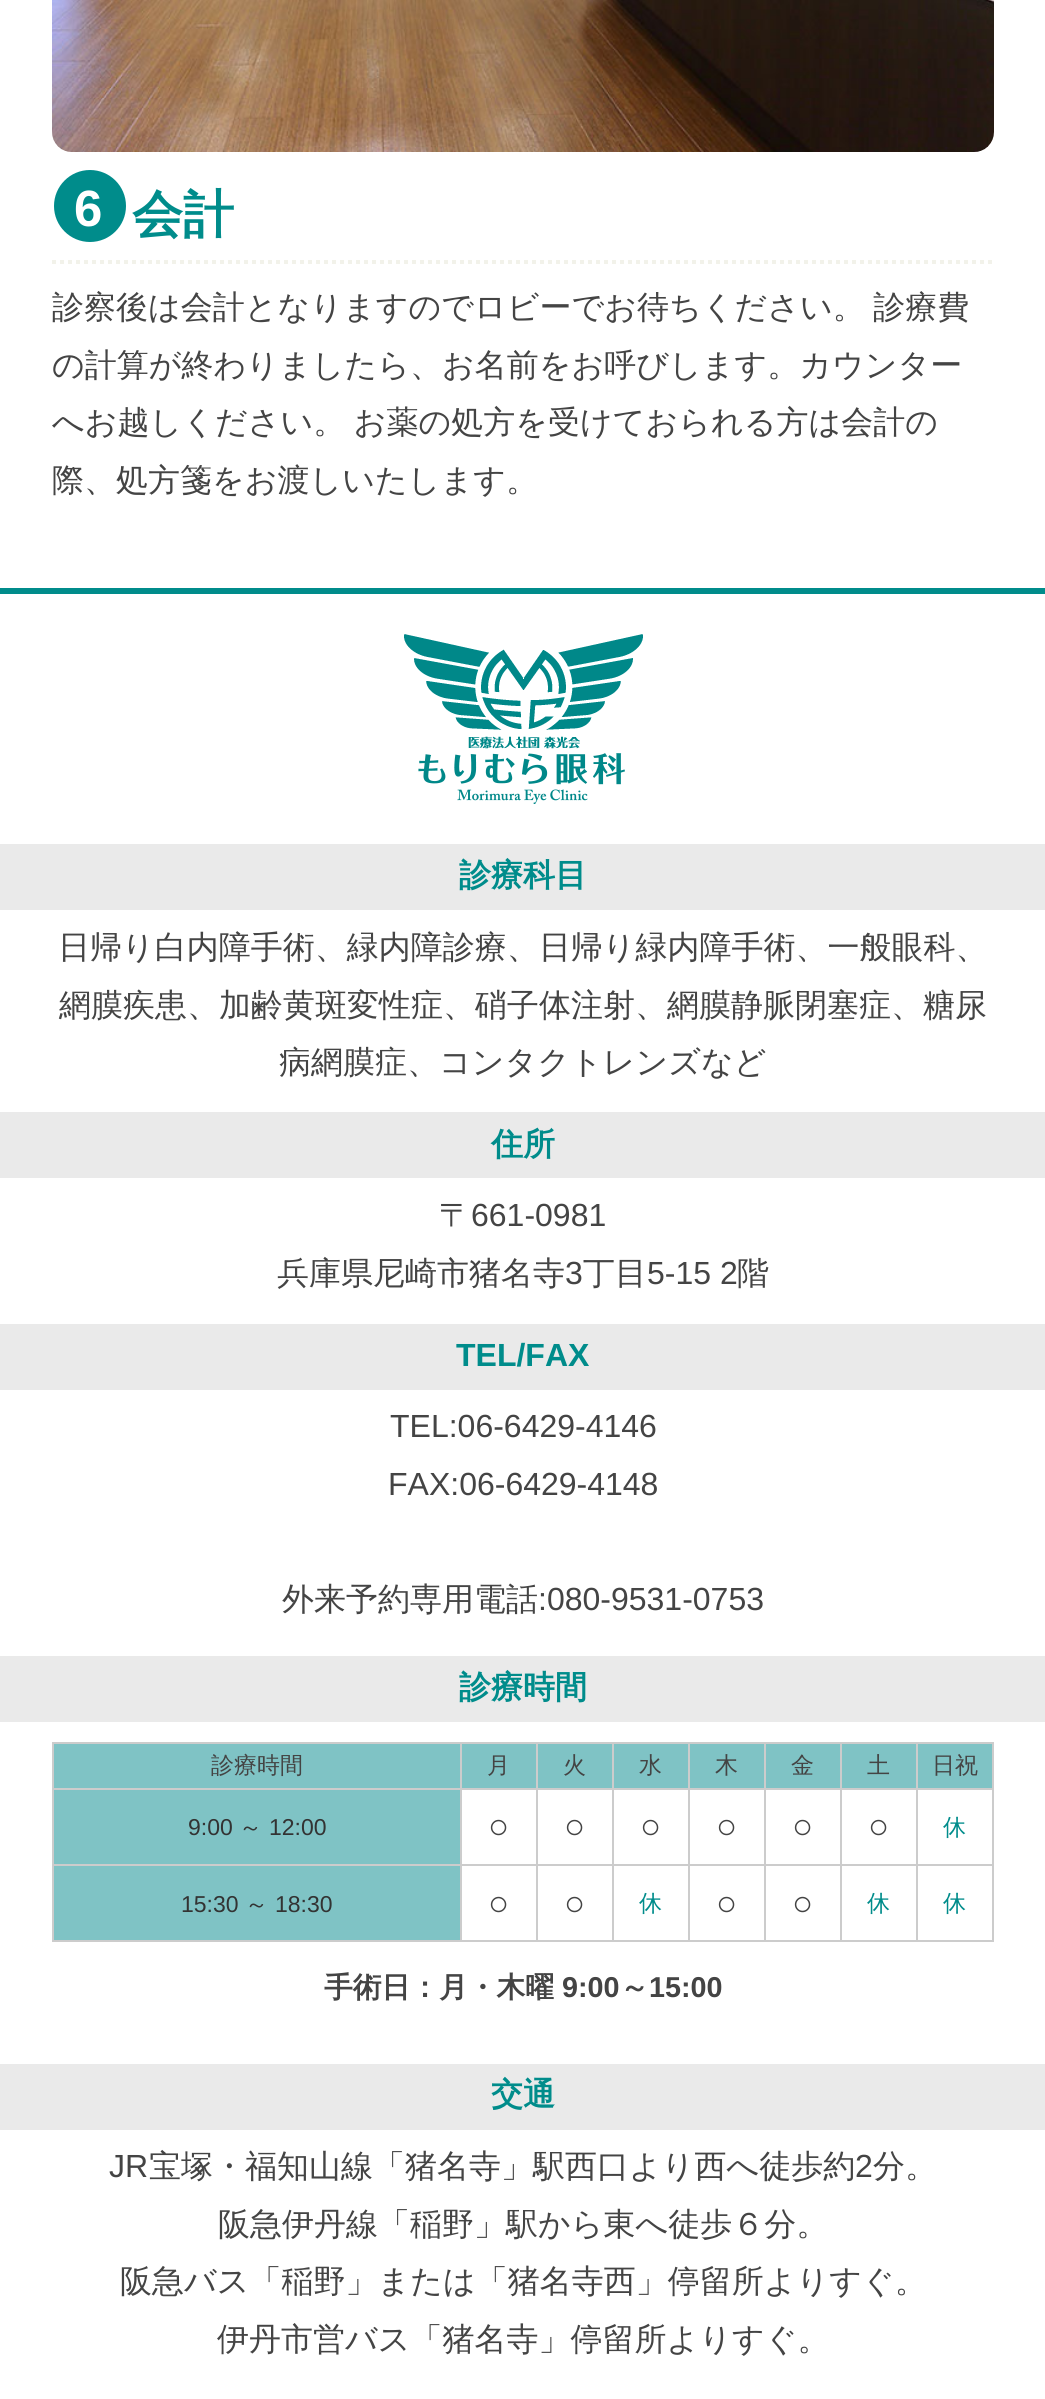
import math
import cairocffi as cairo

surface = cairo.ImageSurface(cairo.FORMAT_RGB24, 1045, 2399)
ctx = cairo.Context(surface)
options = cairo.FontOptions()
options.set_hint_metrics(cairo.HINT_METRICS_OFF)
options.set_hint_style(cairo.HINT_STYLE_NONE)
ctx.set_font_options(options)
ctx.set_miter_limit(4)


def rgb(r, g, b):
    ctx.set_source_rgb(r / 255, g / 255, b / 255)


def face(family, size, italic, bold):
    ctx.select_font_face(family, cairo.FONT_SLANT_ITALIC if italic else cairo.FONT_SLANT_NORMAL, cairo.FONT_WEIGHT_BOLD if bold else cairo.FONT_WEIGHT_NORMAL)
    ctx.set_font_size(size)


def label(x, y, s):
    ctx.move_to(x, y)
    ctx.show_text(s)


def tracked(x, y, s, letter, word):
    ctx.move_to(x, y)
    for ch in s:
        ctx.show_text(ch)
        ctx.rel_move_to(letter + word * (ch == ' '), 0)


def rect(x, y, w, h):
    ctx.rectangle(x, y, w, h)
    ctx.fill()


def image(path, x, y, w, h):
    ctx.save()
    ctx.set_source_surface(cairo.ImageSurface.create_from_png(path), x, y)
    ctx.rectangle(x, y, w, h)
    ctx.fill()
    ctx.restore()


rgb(255, 255, 255)
ctx.paint()
image('image0.png', 52, 0, 942, 152)
ctx.new_path()
ctx.move_to(52, 262)
ctx.line_to(994, 262)
rgb(242, 242, 234)
ctx.set_line_width(4)
ctx.set_dash([4, 4])
ctx.stroke()
rgb(0, 140, 139)
ctx.arc(90, 206, 36, 0, 2 * math.pi)
ctx.fill()
face('Liberation Sans', 51, 0, 1)
rgb(255, 255, 255)
label(74, 226, '6')
face('WenQuanYi Zen Hei', 51, 0, 1)
rgb(0, 140, 139)
label(132, 232, '会計')
face('WenQuanYi Zen Hei Medium', 32, 0, 0)
rgb(68, 68, 68)
tracked(52, 318, '診察後は会計となりますのでロビーでお待ちください。 診療費', 0, -1)
label(52, 376, 'の計算が終わりましたら、お名前をお呼びします。カウンター')
tracked(52, 433, 'へお越しください。 お薬の処方を受けておられる方は会計の', 0, -1)
label(52, 491, '際、処方箋をお渡しいたします。')
rgb(0, 140, 139)
rect(0, 588, 1045, 6)
image('image1.png', 404, 634, 239, 170)
rgb(234, 234, 234)
rect(0, 844, 1045, 66)
face('WenQuanYi Zen Hei', 32, 0, 1)
rgb(0, 140, 139)
label(459, 886, '診療科目')
face('WenQuanYi Zen Hei Medium', 32, 0, 0)
rgb(68, 68, 68)
label(58, 958, '日帰り白内障手術、緑内障診療、日帰り緑内障手術、一般眼科、')
label(59, 1016, '網膜疾患、加齢黄斑変性症、硝子体注射、網膜静脈閉塞症、糖尿')
label(279, 1073, '病網膜症、コンタクトレンズなど')
rgb(234, 234, 234)
rect(0, 1112, 1045, 66)
face('WenQuanYi Zen Hei', 32, 0, 1)
rgb(0, 140, 139)
label(491, 1155, '住所')
face('WenQuanYi Zen Hei Medium', 32, 0, 0)
rgb(68, 68, 68)
label(439, 1226, '〒')
face('Liberation Sans', 32, 0, 0)
label(471, 1226, '661-0981')
face('WenQuanYi Zen Hei Medium', 32, 0, 0)
label(277, 1284, '兵庫県尼崎市猪名寺')
face('Liberation Sans', 32, 0, 0)
label(565, 1284, '3')
face('WenQuanYi Zen Hei Medium', 32, 0, 0)
label(583, 1284, '丁目')
face('Liberation Sans', 32, 0, 0)
label(647, 1284, '5-15 2')
face('WenQuanYi Zen Hei Medium', 32, 0, 0)
label(737, 1284, '階')
rgb(234, 234, 234)
rect(0, 1324, 1045, 66)
face('Liberation Sans', 32, 0, 1)
rgb(0, 140, 139)
label(456, 1366, 'TEL/FAX')
face('Liberation Sans', 32, 0, 0)
rgb(68, 68, 68)
label(390, 1437, 'TEL:06-6429-4146')
label(388, 1495, 'FAX:06-6429-4148')
face('WenQuanYi Zen Hei Medium', 32, 0, 0)
label(282, 1610, '外来予約専用電話')
face('Liberation Sans', 32, 0, 0)
label(538, 1610, ':080-9531-0753')
rgb(234, 234, 234)
rect(0, 1656, 1045, 66)
face('WenQuanYi Zen Hei', 32, 0, 1)
rgb(0, 140, 139)
label(459, 1698, '診療時間')
rgb(127, 195, 197)
rect(54, 1744, 938, 44)
rgb(204, 204, 204)
rect(916, 1742, 78, 2)
rect(916, 1788, 78, 2)
rect(916, 1864, 78, 2)
rect(992, 1864, 2, 78)
rect(916, 1940, 78, 2)
rect(916, 1864, 2, 78)
rect(840, 1864, 78, 2)
rect(916, 1788, 2, 78)
rect(840, 1788, 78, 2)
rect(916, 1742, 2, 48)
rect(840, 1742, 78, 2)
rect(840, 1940, 78, 2)
rect(840, 1864, 2, 78)
rect(764, 1864, 78, 2)
rect(840, 1788, 2, 78)
rect(764, 1788, 78, 2)
rect(840, 1742, 2, 48)
rect(764, 1742, 78, 2)
rect(764, 1940, 78, 2)
rect(764, 1864, 2, 78)
rect(688, 1864, 78, 2)
rect(764, 1788, 2, 78)
rect(688, 1788, 78, 2)
rect(764, 1742, 2, 48)
rect(688, 1742, 78, 2)
rect(688, 1940, 78, 2)
rect(688, 1864, 2, 78)
rect(612, 1864, 78, 2)
rect(688, 1788, 2, 78)
rect(612, 1788, 78, 2)
rect(688, 1742, 2, 48)
rect(612, 1742, 78, 2)
rect(612, 1940, 78, 2)
rect(612, 1864, 2, 78)
rect(536, 1864, 78, 2)
rect(612, 1788, 2, 78)
rect(536, 1788, 78, 2)
rect(612, 1742, 2, 48)
rect(536, 1742, 78, 2)
rect(536, 1940, 78, 2)
rect(536, 1864, 2, 78)
rect(460, 1864, 78, 2)
rect(536, 1788, 2, 78)
rect(460, 1788, 78, 2)
rect(536, 1742, 2, 48)
rect(460, 1742, 78, 2)
rect(460, 1940, 78, 2)
rect(460, 1864, 2, 78)
rect(52, 1864, 410, 2)
rect(460, 1788, 2, 78)
rect(52, 1788, 410, 2)
rect(460, 1742, 2, 48)
rect(52, 1742, 410, 2)
rect(52, 1940, 410, 2)
rect(52, 1864, 2, 78)
rect(52, 1788, 2, 78)
rect(52, 1742, 2, 48)
face('WenQuanYi Zen Hei Medium', 23, 0, 0)
rgb(68, 68, 68)
label(211, 1773, '診療時間')
label(487, 1773, '月')
label(563, 1773, '火')
label(639, 1773, '水')
label(715, 1773, '木')
label(791, 1773, '金')
label(867, 1773, '土')
rgb(204, 204, 204)
rect(992, 1788, 2, 78)
rect(992, 1742, 2, 48)
rgb(68, 68, 68)
label(932, 1773, '日祝')
rgb(127, 195, 197)
rect(54, 1790, 406, 74)
face('Liberation Sans', 23, 0, 0)
rgb(51, 51, 51)
label(188, 1835, '9:00')
face('WenQuanYi Zen Hei Medium', 23, 0, 0)
label(239, 1835, '～')
face('Liberation Sans', 23, 0, 0)
label(269, 1835, '12:00')
face('Liberation Sans', 35, 0, 0)
rgb(68, 68, 68)
label(488, 1838, '○')
label(564, 1838, '○')
label(640, 1838, '○')
label(716, 1838, '○')
label(792, 1838, '○')
label(868, 1838, '○')
face('WenQuanYi Zen Hei Medium', 23, 0, 0)
rgb(0, 140, 139)
label(943, 1835, '休')
rgb(127, 195, 197)
rect(54, 1866, 406, 74)
face('Liberation Sans', 23, 0, 0)
rgb(51, 51, 51)
label(181, 1912, '15:30')
face('WenQuanYi Zen Hei Medium', 23, 0, 0)
label(245, 1912, '～')
face('Liberation Sans', 23, 0, 0)
label(275, 1912, '18:30')
face('Liberation Sans', 35, 0, 0)
rgb(68, 68, 68)
label(488, 1915, '○')
label(564, 1915, '○')
face('WenQuanYi Zen Hei Medium', 23, 0, 0)
rgb(0, 140, 139)
label(639, 1911, '休')
face('Liberation Sans', 35, 0, 0)
rgb(68, 68, 68)
label(716, 1915, '○')
label(792, 1915, '○')
face('WenQuanYi Zen Hei Medium', 23, 0, 0)
rgb(0, 140, 139)
label(867, 1911, '休')
label(943, 1911, '休')
face('WenQuanYi Zen Hei', 28.75, 0, 1)
rgb(68, 68, 68)
label(324, 1997, '手術日：月・木曜')
face('Liberation Sans', 28.75, 0, 1)
label(562, 1997, '9:00')
face('WenQuanYi Zen Hei', 28.75, 0, 1)
label(620, 1997, '～')
face('Liberation Sans', 28.75, 0, 1)
label(649, 1997, '15:00')
rgb(234, 234, 234)
rect(0, 2064, 1045, 66)
face('WenQuanYi Zen Hei', 32, 0, 1)
rgb(0, 140, 139)
label(491, 2105, '交通')
face('Liberation Sans', 32, 0, 0)
rgb(68, 68, 68)
label(109, 2177, 'JR')
face('WenQuanYi Zen Hei Medium', 32, 0, 0)
label(149, 2177, '宝塚・福知山線「猪名寺」駅西口より西へ徒歩約')
face('Liberation Sans', 32, 0, 0)
label(855, 2177, '2')
face('WenQuanYi Zen Hei Medium', 32, 0, 0)
label(873, 2177, '分。')
label(218, 2235, '阪急伊丹線「稲野」駅から東へ徒歩６分。')
label(120, 2292, '阪急バス「稲野」または「猪名寺西」停留所よりすぐ。')
label(217, 2350, '伊丹市営バス「猪名寺」停留所よりすぐ。')
surface.write_to_png('render.png')
